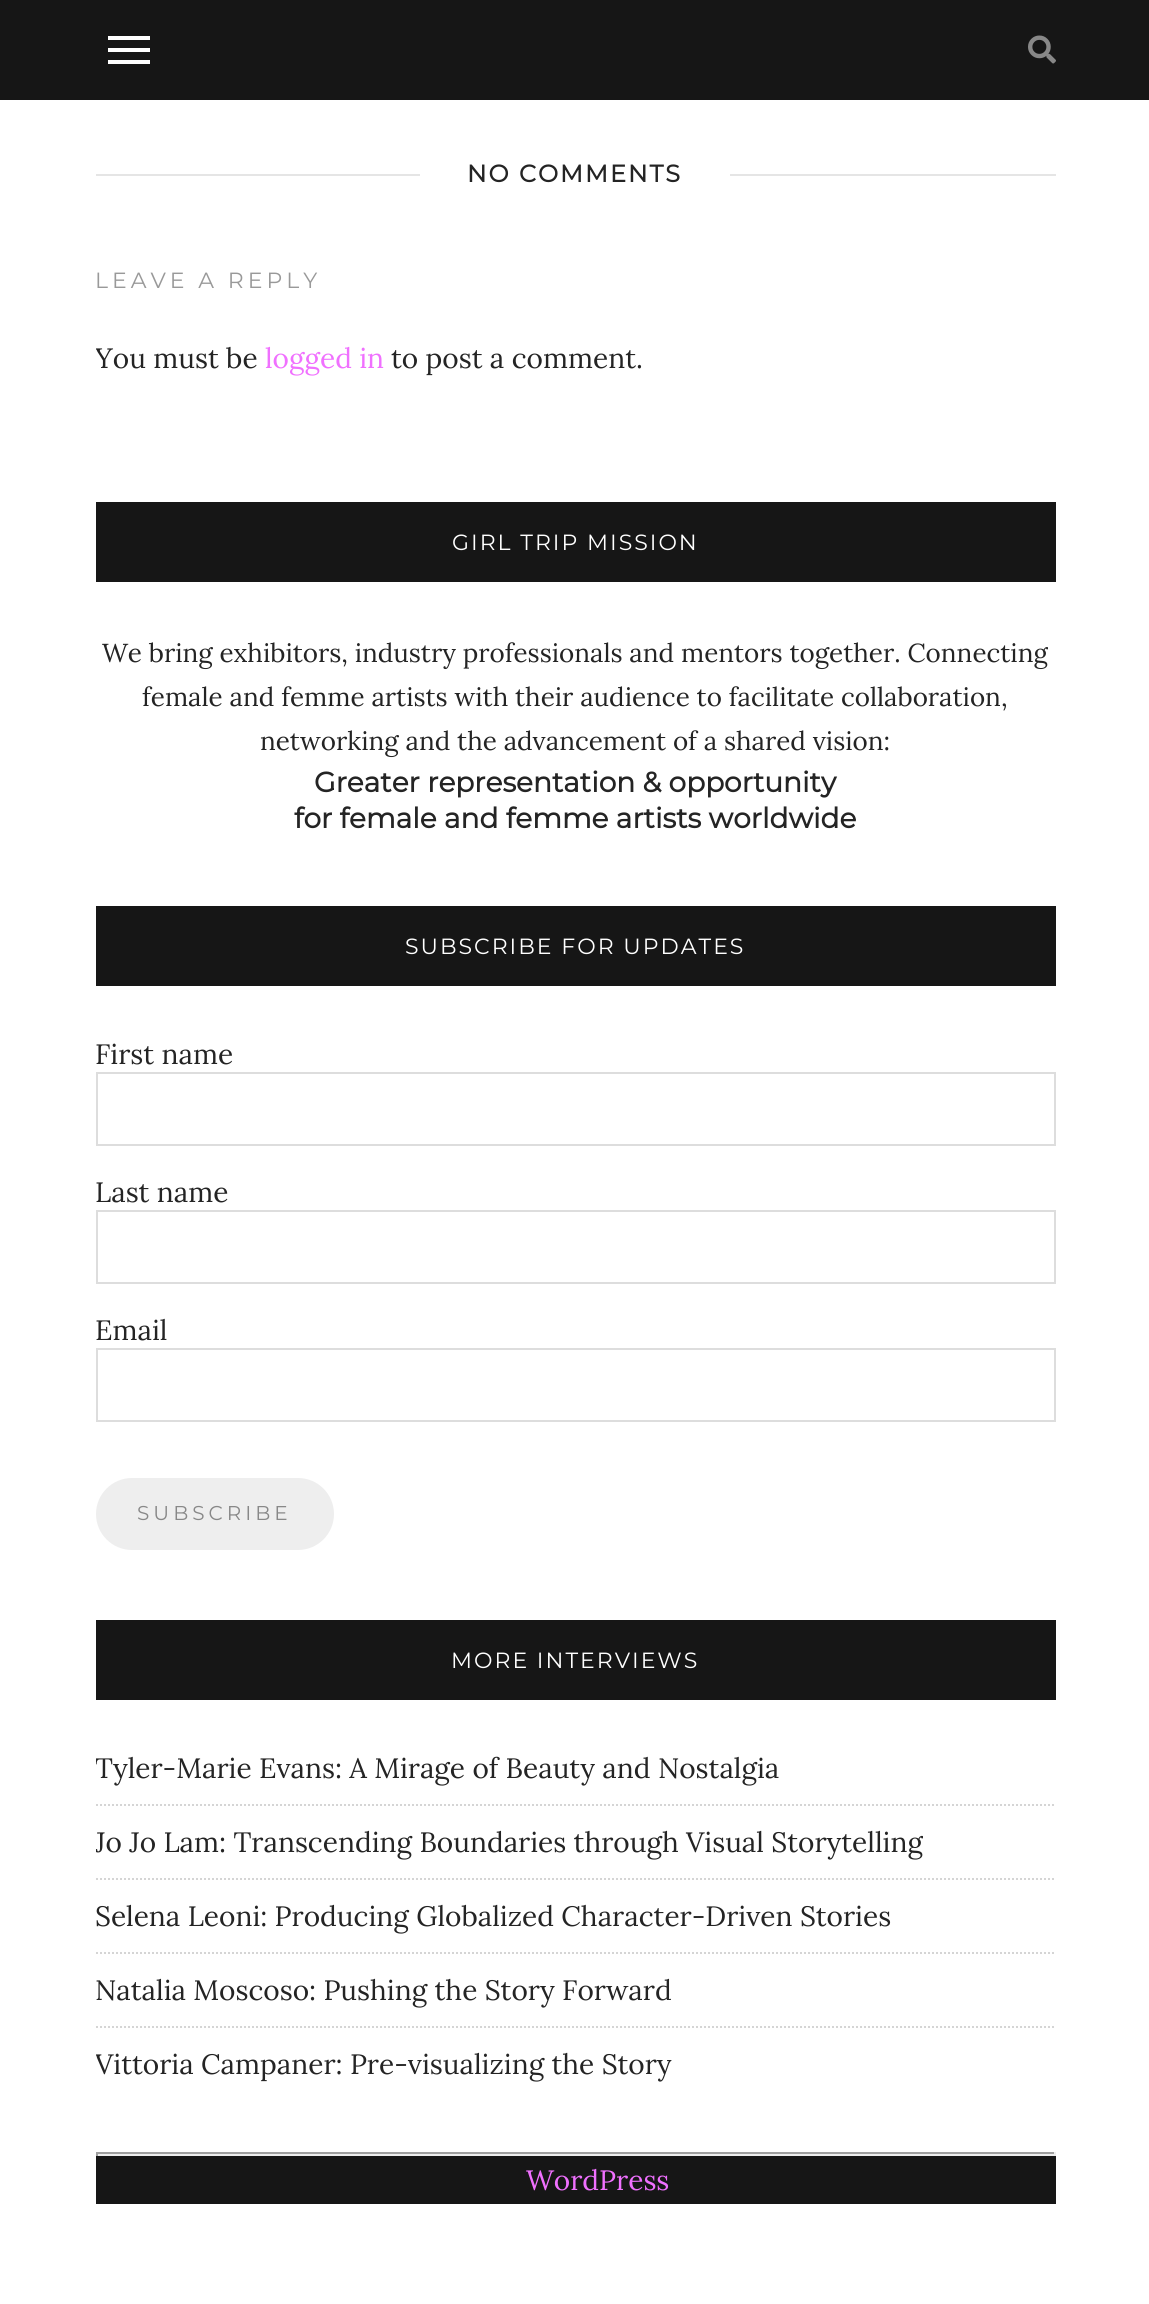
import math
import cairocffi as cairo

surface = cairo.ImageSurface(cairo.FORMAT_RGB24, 1149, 2304)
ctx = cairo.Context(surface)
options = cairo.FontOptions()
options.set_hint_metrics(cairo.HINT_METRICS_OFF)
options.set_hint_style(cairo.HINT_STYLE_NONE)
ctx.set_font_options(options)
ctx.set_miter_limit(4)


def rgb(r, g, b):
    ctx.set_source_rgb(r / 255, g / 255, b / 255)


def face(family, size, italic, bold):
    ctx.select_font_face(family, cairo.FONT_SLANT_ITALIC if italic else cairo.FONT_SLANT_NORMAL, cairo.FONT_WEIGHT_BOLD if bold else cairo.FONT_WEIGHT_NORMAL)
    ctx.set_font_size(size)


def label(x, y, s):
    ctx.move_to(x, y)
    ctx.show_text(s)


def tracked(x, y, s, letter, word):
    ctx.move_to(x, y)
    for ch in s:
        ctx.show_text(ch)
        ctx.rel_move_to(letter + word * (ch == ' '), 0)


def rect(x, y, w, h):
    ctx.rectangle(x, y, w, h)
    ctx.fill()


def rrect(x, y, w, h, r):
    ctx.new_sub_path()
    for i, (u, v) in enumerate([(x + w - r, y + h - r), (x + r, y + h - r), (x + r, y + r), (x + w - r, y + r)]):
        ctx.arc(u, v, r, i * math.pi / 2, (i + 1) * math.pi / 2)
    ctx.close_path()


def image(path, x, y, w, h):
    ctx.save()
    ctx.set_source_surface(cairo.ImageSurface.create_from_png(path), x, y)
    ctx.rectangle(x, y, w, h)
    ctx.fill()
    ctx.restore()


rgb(255, 255, 255)
ctx.paint()
rgb(22, 22, 22)
rect(0, 0, 1149, 100)
rgb(255, 255, 255)
rect(108, 36, 42, 4)
rect(108, 48, 42, 4)
rect(108, 60, 42, 4)
image('image0.png', 1028, 35, 28, 29)
rgb(229, 229, 229)
rect(96, 174, 960, 2)
rgb(255, 255, 255)
rect(420, 174, 310, 2)
face('Montserrat', 24, 0, 1)
rgb(36, 36, 36)
tracked(467, 182, 'NO COMMENTS', 2, 0)
face('Montserrat Thin', 22, 0, 0)
rgb(153, 153, 153)
tracked(95, 288, 'LEAVE A REPLY', 4, 0)
ctx.save()
ctx.rectangle(96, 266, 960, 116)
ctx.clip()
face('Lora', 28, 0, 0)
rgb(36, 36, 36)
label(95, 368, 'You must be')
ctx.restore()
face('Lora', 28, 0, 0)
rgb(240, 112, 255)
label(265, 368, 'logged in')
rgb(36, 36, 36)
label(391, 368, 'to post a comment.')
rgb(22, 22, 22)
rect(96, 502, 960, 80)
face('Montserrat Thin', 22, 0, 0)
rgb(255, 255, 255)
tracked(452, 550, 'GIRL TRIP MISSION', 2, 0)
face('Lora', 26, 0, 0)
rgb(36, 36, 36)
label(102, 662, 'We bring exhibitors, industry professionals and mentors together. Connecting')
label(142, 706, 'female and femme artists with their audience to facilitate collaboration,')
label(260, 750, 'networking and the advancement of a shared vision:')
face('Montserrat', 28, 0, 1)
label(314, 792, 'Greater representation & opportunity')
label(294, 828, 'for female and femme artists worldwide')
rgb(22, 22, 22)
rect(96, 906, 960, 80)
face('Montserrat Thin', 22, 0, 0)
rgb(255, 255, 255)
tracked(405, 954, 'SUBSCRIBE FOR UPDATES', 2, 0)
face('Lora', 28, 0, 0)
rgb(36, 36, 36)
label(95, 1064, 'First name')
ctx.rectangle(97, 1073, 958, 72)
rgb(221, 221, 221)
ctx.stroke()
rgb(36, 36, 36)
label(95, 1202, 'Last name')
ctx.rectangle(97, 1211, 958, 72)
rgb(221, 221, 221)
ctx.stroke()
rgb(36, 36, 36)
label(95, 1340, 'Email')
ctx.rectangle(97, 1349, 958, 72)
rgb(221, 221, 221)
ctx.stroke()
rgb(238, 238, 238)
rrect(96, 1478, 238, 72, 36)
ctx.fill()
face('Montserrat Thin', 20, 0, 0)
rgb(136, 136, 136)
tracked(137, 1520, 'SUBSCRIBE', 4, 0)
rgb(22, 22, 22)
rect(96, 1620, 960, 80)
face('Montserrat Thin', 22, 0, 0)
rgb(255, 255, 255)
tracked(451, 1668, 'MORE INTERVIEWS', 2, 0)
ctx.new_path()
ctx.move_to(96, 1805)
ctx.line_to(1056, 1805)
rgb(213, 213, 213)
ctx.set_dash([2, 2])
ctx.stroke()
ctx.save()
ctx.rectangle(96, 0, 960, 2204)
ctx.clip()
face('Lora', 28, 0, 0)
rgb(36, 36, 36)
label(95, 1778, 'Tyler-Marie Evans: A Mirage of Beauty and Nostalgia')
ctx.restore()
ctx.new_path()
ctx.move_to(96, 1879)
ctx.line_to(1056, 1879)
ctx.stroke()
ctx.save()
ctx.rectangle(96, 0, 960, 2204)
ctx.clip()
face('Lora', 28, 0, 0)
rgb(36, 36, 36)
label(95, 1852, 'Jo Jo Lam: Transcending Boundaries through Visual Storytelling')
ctx.restore()
ctx.new_path()
ctx.move_to(96, 1953)
ctx.line_to(1056, 1953)
ctx.stroke()
face('Lora', 28, 0, 0)
rgb(36, 36, 36)
label(95, 1926, 'Selena Leoni: Producing Globalized Character-Driven Stories')
ctx.new_path()
ctx.move_to(96, 2027)
ctx.line_to(1056, 2027)
rgb(213, 213, 213)
ctx.stroke()
rgb(36, 36, 36)
label(95, 2000, 'Natalia Moscoso: Pushing the Story Forward')
ctx.save()
ctx.rectangle(96, 0, 960, 2204)
ctx.clip()
label(95, 2074, 'Vittoria Campaner: Pre-visualizing the Story')
ctx.restore()
rgb(159, 159, 159)
rect(96, 2152, 960, 2)
rgb(238, 238, 238)
rect(1054, 2152, 2, 4)
rect(96, 2154, 960, 2)
rgb(159, 159, 159)
rect(96, 2152, 2, 4)
rgb(22, 22, 22)
rect(96, 2156, 960, 48)
rgb(240, 112, 255)
label(526, 2190, 'WordPress')
surface.write_to_png('render.png')
